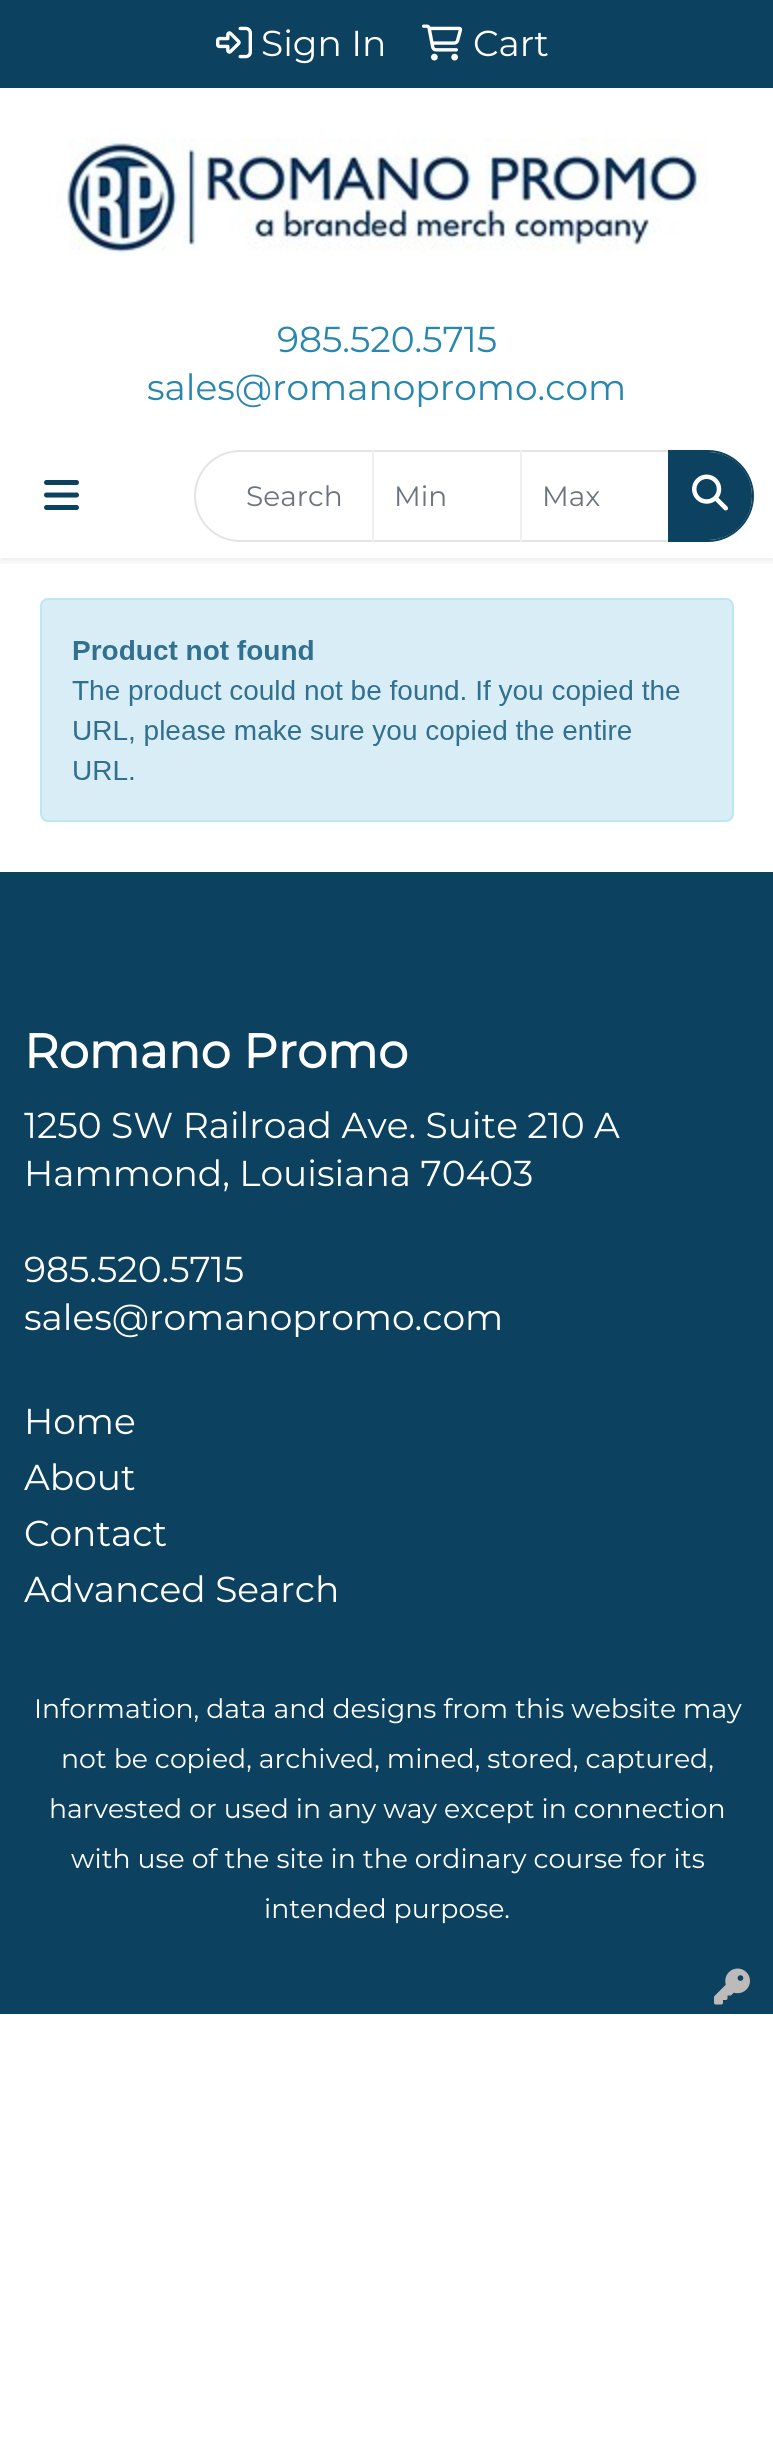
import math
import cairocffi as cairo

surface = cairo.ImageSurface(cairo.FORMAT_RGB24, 773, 2464)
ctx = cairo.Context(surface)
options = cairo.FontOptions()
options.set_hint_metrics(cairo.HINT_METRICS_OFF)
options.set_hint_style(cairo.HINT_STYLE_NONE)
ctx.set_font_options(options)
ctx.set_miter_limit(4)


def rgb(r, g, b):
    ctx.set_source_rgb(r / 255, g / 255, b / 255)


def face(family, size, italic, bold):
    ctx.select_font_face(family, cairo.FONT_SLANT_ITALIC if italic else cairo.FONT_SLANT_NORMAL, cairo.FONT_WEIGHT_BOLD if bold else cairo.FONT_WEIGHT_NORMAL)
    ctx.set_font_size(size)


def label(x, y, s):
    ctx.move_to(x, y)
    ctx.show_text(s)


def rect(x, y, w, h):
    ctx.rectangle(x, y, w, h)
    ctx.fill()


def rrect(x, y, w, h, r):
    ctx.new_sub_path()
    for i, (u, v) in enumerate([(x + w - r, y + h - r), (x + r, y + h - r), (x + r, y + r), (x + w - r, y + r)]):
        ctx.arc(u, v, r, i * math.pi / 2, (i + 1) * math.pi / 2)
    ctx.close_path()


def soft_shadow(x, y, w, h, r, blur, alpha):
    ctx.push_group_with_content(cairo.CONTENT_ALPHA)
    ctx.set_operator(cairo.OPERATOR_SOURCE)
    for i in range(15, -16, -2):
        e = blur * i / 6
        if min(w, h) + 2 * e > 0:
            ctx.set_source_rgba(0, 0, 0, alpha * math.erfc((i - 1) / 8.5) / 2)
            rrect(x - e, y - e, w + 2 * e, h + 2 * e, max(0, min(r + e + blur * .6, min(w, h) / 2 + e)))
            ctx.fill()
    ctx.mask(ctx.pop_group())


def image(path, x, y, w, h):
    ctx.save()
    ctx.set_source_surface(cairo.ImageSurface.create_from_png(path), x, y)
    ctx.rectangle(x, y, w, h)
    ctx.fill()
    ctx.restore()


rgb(255, 255, 255)
ctx.paint()
rgb(12, 65, 96)
rect(0, 0, 773, 88)
image('image0.png', 216, 26, 36, 33)
face('Montserrat Thin', 36, 0, 0)
rgb(255, 255, 255)
label(261, 56, 'Sign In')
image('image1.png', 422, 24, 41, 37)
label(473, 56, 'Cart')
image('image2.png', 56, 138, 652, 116)
rgb(41, 135, 175)
label(277, 352, '985.520.5715')
label(147, 400, 'sales@romanopromo.com')
ctx.save()
ctx.rectangle(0, 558, 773, 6)
ctx.clip()
rgb(0, 0, 0)
soft_shadow(0, 438, 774, 124, 0, 4, 0.07)
ctx.restore()
image('image3.png', 44, 480, 35, 30)
ctx.new_path()
ctx.move_to(240, 451)
ctx.line_to(373, 451)
ctx.line_to(373, 541)
ctx.line_to(240, 541)
ctx.curve_to(215, 541, 195, 521, 195, 496)
ctx.curve_to(195, 471, 215, 451, 240, 451)
ctx.close_path()
rgb(228, 228, 228)
ctx.stroke()
face('Montserrat Thin', 28, 0, 0)
rgb(108, 117, 125)
label(246, 506, 'Search')
rgb(228, 228, 228)
rect(372, 450, 298, 2)
rect(372, 540, 298, 2)
rgb(239, 239, 239)
rect(372, 450, 2, 92)
rgb(108, 117, 125)
label(394, 506, 'Min')
rgb(239, 239, 239)
rect(520, 450, 2, 92)
rgb(108, 117, 125)
label(542, 506, 'Max')
rgb(12, 65, 96)
ctx.new_path()
ctx.move_to(668, 452)
ctx.line_to(708, 452)
ctx.curve_to(732.5, 452, 752, 471.5, 752, 496)
ctx.curve_to(752, 520.5, 732.5, 540, 708, 540)
ctx.line_to(668, 540)
ctx.close_path()
ctx.fill()
ctx.set_fill_rule(cairo.FILL_RULE_EVEN_ODD)
ctx.new_path()
ctx.move_to(668, 450)
ctx.line_to(708, 450)
ctx.curve_to(733, 450, 754, 471, 754, 496)
ctx.curve_to(754, 521, 733, 542, 708, 542)
ctx.line_to(668, 542)
ctx.close_path()
ctx.move_to(668, 452)
ctx.line_to(708, 452)
ctx.curve_to(732, 452, 752, 472, 752, 496)
ctx.curve_to(752, 520, 732, 540, 708, 540)
ctx.line_to(668, 540)
ctx.close_path()
ctx.fill()
image('image4.png', 692, 474, 36, 37)
image('image5.png', 40, 598, 694, 224)
rect(0, 872, 773, 1142)
face('Montserrat', 48, 0, 1)
rgb(255, 255, 255)
label(24, 1068, 'Romano Promo')
face('Montserrat Thin', 36, 0, 0)
label(24, 1138, '1250 SW Railroad Ave. Suite 210 A')
label(24, 1186, 'Hammond, Louisiana 70403')
label(24, 1282, '985.520.5715')
label(24, 1330, 'sales@romanopromo.com')
label(24, 1434, 'Home')
label(24, 1490, 'About')
label(24, 1546, 'Contact')
label(24, 1602, 'Advanced Search')
face('Montserrat Thin', 26.7, 0, 0)
label(34, 1718, 'Information, data and designs from this website may')
label(61, 1768, 'not be copied, archived, mined, stored, captured,')
label(49, 1818, 'harvested or used in any way except in connection')
label(71, 1868, 'with use of the site in the ordinary course for its')
label(264, 1918, 'intended purpose.')
image('image6.png', 714, 1968, 36, 37)
surface.write_to_png('render.png')
